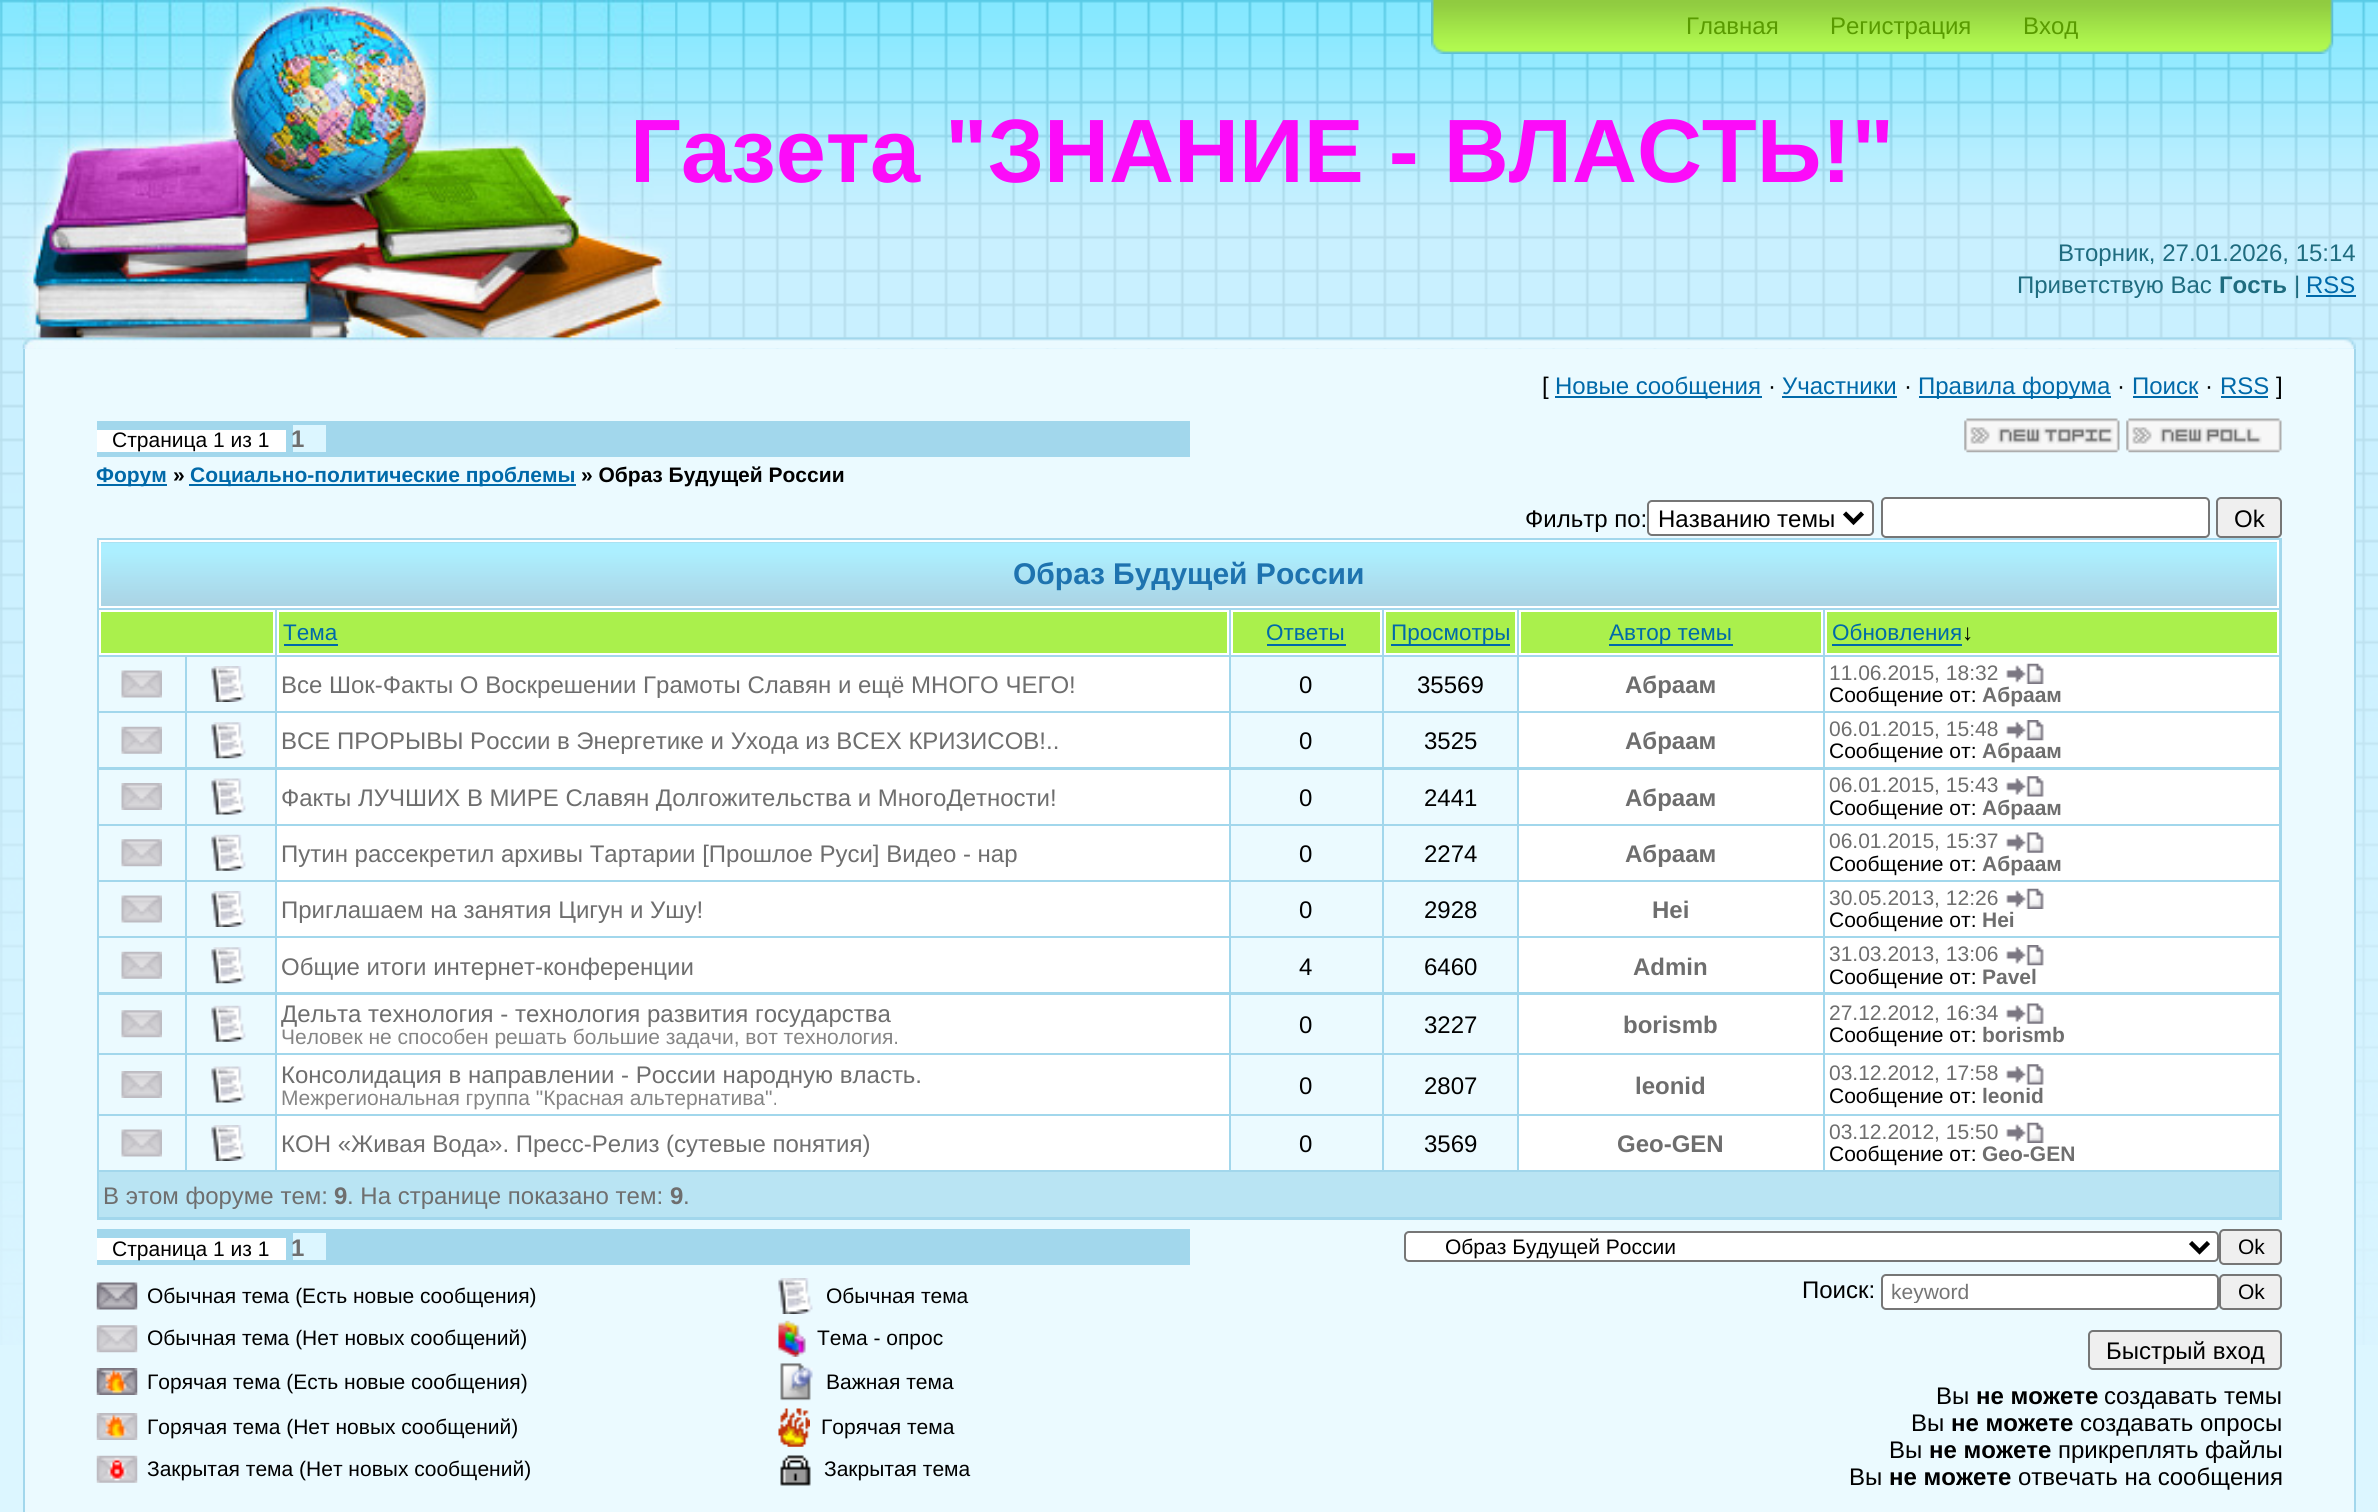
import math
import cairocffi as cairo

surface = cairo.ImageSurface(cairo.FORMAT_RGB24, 2378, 1512)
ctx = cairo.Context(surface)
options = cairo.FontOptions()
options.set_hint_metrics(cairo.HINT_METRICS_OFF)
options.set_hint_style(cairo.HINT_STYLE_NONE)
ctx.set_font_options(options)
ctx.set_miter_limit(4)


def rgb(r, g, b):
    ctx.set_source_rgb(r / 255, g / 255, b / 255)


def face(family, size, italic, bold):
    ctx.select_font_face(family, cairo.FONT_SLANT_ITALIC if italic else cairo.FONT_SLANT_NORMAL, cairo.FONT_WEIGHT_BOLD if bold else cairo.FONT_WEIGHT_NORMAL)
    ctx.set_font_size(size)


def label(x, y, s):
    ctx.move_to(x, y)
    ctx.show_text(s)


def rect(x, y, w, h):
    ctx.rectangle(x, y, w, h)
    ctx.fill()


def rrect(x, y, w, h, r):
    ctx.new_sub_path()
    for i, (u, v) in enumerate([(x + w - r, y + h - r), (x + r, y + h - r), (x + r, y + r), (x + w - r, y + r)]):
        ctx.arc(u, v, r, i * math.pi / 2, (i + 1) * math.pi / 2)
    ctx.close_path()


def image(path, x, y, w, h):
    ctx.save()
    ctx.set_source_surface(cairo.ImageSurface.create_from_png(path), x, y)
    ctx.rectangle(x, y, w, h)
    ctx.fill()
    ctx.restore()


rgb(220, 246, 255)
ctx.paint()
image('image0.png', 0, 0, 2378, 1345)
image('image1.png', 22, 337, 2334, 12)
image('image2.png', 22, 0, 653, 349)
image('image3.png', 1431, 0, 903, 54)
face('Liberation Sans', 24, 0, 0)
rgb(89, 155, 0)
label(1686, 34, 'Главная')
label(1830, 34, 'Регистрация')
label(2023, 34, 'Вход')
face('Liberation Sans', 90, 0, 1)
rgb(252, 11, 249)
label(630, 182, 'Газета "ЗНАНИЕ - ВЛАСТЬ!"')
face('Liberation Sans', 24, 0, 0)
rgb(31, 108, 127)
label(2058, 261, 'Вторник, 27.01.2026, 15:14')
label(2017, 293, 'Приветствую Вас')
face('Liberation Sans', 24, 0, 1)
label(2219, 293, 'Гость')
face('Liberation Sans', 24, 0, 0)
label(2294, 293, '|')
rgb(0, 105, 169)
label(2306, 293, 'RSS')
rect(2306, 295, 50, 2)
rgb(235, 250, 255)
rect(25, 349, 2329, 1163)
rgb(162, 215, 236)
rect(23, 349, 2, 1163)
rect(2354, 349, 2, 1163)
rgb(0, 0, 0)
label(1542, 394, '[')
rgb(0, 105, 169)
rect(1555, 396, 207, 2)
label(1555, 394, 'Новые сообщения')
rgb(0, 0, 0)
label(1768, 394, '·')
rgb(0, 105, 169)
label(1782, 394, 'Участники')
rect(1782, 396, 115, 2)
rgb(0, 0, 0)
label(1904, 394, '·')
rgb(0, 105, 169)
rect(1919, 396, 192, 2)
label(1918, 394, 'Правила форума')
rgb(0, 0, 0)
label(2117, 394, '·')
rgb(0, 105, 169)
label(2132, 394, 'Поиск')
rect(2133, 396, 65, 2)
rgb(0, 0, 0)
label(2205, 394, '·')
rgb(0, 105, 169)
label(2220, 394, 'RSS')
rect(2221, 396, 47, 2)
rgb(0, 0, 0)
label(2276, 394, ']')
rgb(162, 215, 236)
rect(97, 421, 1093, 36)
rgb(255, 255, 255)
rect(97, 430, 189, 22)
face('Liberation Sans', 21, 0, 0)
rgb(0, 0, 0)
label(112, 447, 'Страница 1 из 1')
rgb(220, 246, 255)
rect(293, 425, 33, 27)
face('Liberation Sans', 24, 0, 1)
rgb(110, 110, 110)
label(291, 447, '1')
image('image4.png', 1964, 418, 156, 35)
image('image5.png', 2126, 418, 156, 35)
rgb(0, 105, 169)
rect(97, 484, 70, 2)
face('Liberation Sans', 21, 0, 1)
label(96, 482, 'Форум')
rgb(0, 0, 0)
label(173, 482, '»')
rgb(0, 105, 169)
rect(189, 484, 387, 2)
label(190, 482, 'Социально-политические проблемы')
rgb(0, 0, 0)
label(581, 482, '» Образ Будущей России')
face('Liberation Sans', 24, 0, 0)
label(1525, 527, 'Фильтр по:')
rgb(255, 255, 255)
rrect(1648, 501, 225, 34, 4)
ctx.fill_preserve()
rgb(118, 118, 118)
ctx.stroke()
ctx.new_path()
ctx.move_to(1844.5, 513)
ctx.line_to(1853.5, 522)
ctx.line_to(1862.5, 513)
rgb(0, 0, 0)
ctx.set_line_width(4.5)
ctx.stroke()
label(1658, 527, 'Названию темы')
rgb(255, 255, 255)
rrect(1882, 498, 327, 39, 4)
ctx.fill_preserve()
rgb(118, 118, 118)
ctx.set_line_width(2)
ctx.stroke()
rgb(239, 239, 239)
rrect(2217, 498, 64, 39, 4)
ctx.fill_preserve()
rgb(118, 118, 118)
ctx.stroke()
rgb(0, 0, 0)
label(2234, 527, 'Ok')
rgb(162, 215, 236)
rect(97, 538, 2185, 682)
image('image6.png', 101, 540, 2179, 68)
ctx.rectangle(100, 541, 2178, 66)
rgb(255, 255, 255)
ctx.stroke()
face('Liberation Sans', 30, 0, 1)
rgb(30, 115, 175)
label(1013, 584, 'Образ Будущей России')
rgb(170, 240, 76)
ctx.rectangle(100, 611, 174, 43)
ctx.fill_preserve()
rgb(255, 255, 255)
ctx.stroke()
rgb(170, 240, 76)
ctx.rectangle(278, 611, 950, 43)
ctx.fill_preserve()
rgb(255, 255, 255)
ctx.stroke()
face('Liberation Sans', 22.5, 0, 0)
rgb(0, 105, 169)
label(283, 640, 'Тема')
rect(284, 644, 54, 2)
rgb(170, 240, 76)
ctx.rectangle(1232, 611, 149, 43)
ctx.fill_preserve()
rgb(255, 255, 255)
ctx.stroke()
rgb(0, 105, 169)
label(1266, 640, 'Ответы')
rect(1267, 644, 79, 2)
rgb(170, 240, 76)
ctx.rectangle(1385, 611, 131, 43)
ctx.fill_preserve()
rgb(255, 255, 255)
ctx.stroke()
rgb(0, 105, 169)
rect(1391, 644, 119, 2)
label(1391, 640, 'Просмотры')
rgb(170, 240, 76)
ctx.rectangle(1520, 611, 302, 43)
ctx.fill_preserve()
rgb(255, 255, 255)
ctx.stroke()
rgb(0, 105, 169)
rect(1609, 644, 124, 2)
label(1609, 640, 'Автор темы')
rgb(170, 240, 76)
ctx.rectangle(1826, 611, 452, 43)
ctx.fill_preserve()
rgb(255, 255, 255)
ctx.stroke()
rgb(0, 105, 169)
label(1832, 640, 'Обновления')
rect(1832, 644, 130, 2)
rgb(0, 0, 0)
label(1962, 640, '↓')
rgb(235, 250, 255)
rect(99, 657, 86, 54)
image('image7.png', 121, 670, 41, 28)
rect(187, 657, 88, 54)
image('image8.png', 211, 666, 35, 36)
rgb(255, 255, 255)
rect(277, 657, 952, 54)
face('Liberation Sans', 24, 0, 0)
rgb(110, 110, 110)
label(281, 693, 'Все Шок-Факты О Воскрешении Грамоты Славян и ещё МНОГО ЧЕГО!')
rgb(235, 250, 255)
rect(1231, 657, 151, 54)
rgb(0, 0, 0)
label(1299, 693, '0')
rgb(235, 250, 255)
rect(1384, 657, 133, 54)
rgb(0, 0, 0)
label(1417, 693, '35569')
rgb(255, 255, 255)
rect(1519, 657, 304, 54)
face('Liberation Sans', 24, 0, 1)
rgb(110, 110, 110)
label(1625, 693, 'Абраам')
rgb(255, 255, 255)
rect(1825, 657, 454, 54)
face('Liberation Sans', 21, 0, 0)
rgb(110, 110, 110)
label(1829, 680, '11.06.2015, 18:32')
image('image9.png', 2006, 663, 38, 21)
rgb(0, 0, 0)
label(1829, 702, 'Сообщение от:')
face('Liberation Sans', 21, 0, 1)
rgb(110, 110, 110)
label(1982, 702, 'Абраам')
rgb(235, 250, 255)
rect(99, 713, 86, 54)
image('image10.png', 121, 726, 41, 28)
rect(187, 713, 88, 54)
image('image11.png', 211, 722, 35, 37)
rgb(255, 255, 255)
rect(277, 713, 952, 54)
face('Liberation Sans', 24, 0, 0)
rgb(110, 110, 110)
label(281, 749, 'ВСЕ ПРОРЫВЫ России в Энергетике и Ухода из ВСЕХ КРИЗИСОВ!..')
rgb(235, 250, 255)
rect(1231, 713, 151, 54)
rgb(0, 0, 0)
label(1299, 749, '0')
rgb(235, 250, 255)
rect(1384, 713, 133, 54)
rgb(0, 0, 0)
label(1424, 749, '3525')
rgb(255, 255, 255)
rect(1519, 713, 304, 54)
face('Liberation Sans', 24, 0, 1)
rgb(110, 110, 110)
label(1625, 749, 'Абраам')
rgb(255, 255, 255)
rect(1825, 713, 454, 54)
face('Liberation Sans', 21, 0, 0)
rgb(110, 110, 110)
label(1829, 736, '06.01.2015, 15:48')
image('image12.png', 2006, 720, 38, 21)
rgb(0, 0, 0)
label(1829, 758, 'Сообщение от:')
face('Liberation Sans', 21, 0, 1)
rgb(110, 110, 110)
label(1982, 758, 'Абраам')
rgb(235, 250, 255)
rect(99, 770, 86, 54)
image('image13.png', 121, 783, 41, 27)
rect(187, 770, 88, 54)
image('image14.png', 211, 778, 35, 37)
rgb(255, 255, 255)
rect(277, 770, 952, 54)
face('Liberation Sans', 24, 0, 0)
rgb(110, 110, 110)
label(281, 806, 'Факты ЛУЧШИХ В МИРЕ Славян Долгожительства и МногоДетности!')
rgb(235, 250, 255)
rect(1231, 770, 151, 54)
rgb(0, 0, 0)
label(1299, 806, '0')
rgb(235, 250, 255)
rect(1384, 770, 133, 54)
rgb(0, 0, 0)
label(1424, 806, '2441')
rgb(255, 255, 255)
rect(1519, 770, 304, 54)
face('Liberation Sans', 24, 0, 1)
rgb(110, 110, 110)
label(1625, 806, 'Абраам')
rgb(255, 255, 255)
rect(1825, 770, 454, 54)
face('Liberation Sans', 21, 0, 0)
rgb(110, 110, 110)
label(1829, 792, '06.01.2015, 15:43')
image('image15.png', 2006, 776, 38, 21)
rgb(0, 0, 0)
label(1829, 815, 'Сообщение от:')
face('Liberation Sans', 21, 0, 1)
rgb(110, 110, 110)
label(1982, 815, 'Абраам')
rgb(235, 250, 255)
rect(99, 826, 86, 54)
image('image16.png', 121, 839, 41, 28)
rect(187, 826, 88, 54)
image('image17.png', 211, 834, 35, 37)
rgb(255, 255, 255)
rect(277, 826, 952, 54)
face('Liberation Sans', 24, 0, 0)
rgb(110, 110, 110)
label(281, 862, 'Путин рассекретил архивы Тартарии [Прошлое Руси] Видео - нар')
rgb(235, 250, 255)
rect(1231, 826, 151, 54)
rgb(0, 0, 0)
label(1299, 862, '0')
rgb(235, 250, 255)
rect(1384, 826, 133, 54)
rgb(0, 0, 0)
label(1424, 862, '2274')
rgb(255, 255, 255)
rect(1519, 826, 304, 54)
face('Liberation Sans', 24, 0, 1)
rgb(110, 110, 110)
label(1625, 862, 'Абраам')
rgb(255, 255, 255)
rect(1825, 826, 454, 54)
face('Liberation Sans', 21, 0, 0)
rgb(110, 110, 110)
label(1829, 848, '06.01.2015, 15:37')
image('image18.png', 2006, 832, 38, 21)
rgb(0, 0, 0)
label(1829, 871, 'Сообщение от:')
face('Liberation Sans', 21, 0, 1)
rgb(110, 110, 110)
label(1982, 871, 'Абраам')
rgb(235, 250, 255)
rect(99, 882, 86, 54)
image('image7.png', 121, 895, 41, 28)
rect(187, 882, 88, 54)
image('image8.png', 211, 891, 35, 36)
rgb(255, 255, 255)
rect(277, 882, 952, 54)
face('Liberation Sans', 24, 0, 0)
rgb(110, 110, 110)
label(281, 918, 'Приглашаем на занятия Цигун и Ушу!')
rgb(235, 250, 255)
rect(1231, 882, 151, 54)
rgb(0, 0, 0)
label(1299, 918, '0')
rgb(235, 250, 255)
rect(1384, 882, 133, 54)
rgb(0, 0, 0)
label(1424, 918, '2928')
rgb(255, 255, 255)
rect(1519, 882, 304, 54)
face('Liberation Sans', 24, 0, 1)
rgb(110, 110, 110)
label(1652, 918, 'Hei')
rgb(255, 255, 255)
rect(1825, 882, 454, 54)
face('Liberation Sans', 21, 0, 0)
rgb(110, 110, 110)
label(1829, 905, '30.05.2013, 12:26')
image('image9.png', 2006, 888, 38, 21)
rgb(0, 0, 0)
label(1829, 927, 'Сообщение от:')
face('Liberation Sans', 21, 0, 1)
rgb(110, 110, 110)
label(1982, 927, 'Hei')
rgb(235, 250, 255)
rect(99, 938, 86, 54)
image('image10.png', 121, 951, 41, 28)
rect(187, 938, 88, 54)
image('image11.png', 211, 947, 35, 37)
rgb(255, 255, 255)
rect(277, 938, 952, 54)
face('Liberation Sans', 24, 0, 0)
rgb(110, 110, 110)
label(281, 975, 'Общие итоги интернет-конференции')
rgb(235, 250, 255)
rect(1231, 938, 151, 54)
rgb(0, 0, 0)
label(1299, 975, '4')
rgb(235, 250, 255)
rect(1384, 938, 133, 54)
rgb(0, 0, 0)
label(1424, 975, '6460')
rgb(255, 255, 255)
rect(1519, 938, 304, 54)
face('Liberation Sans', 24, 0, 1)
rgb(110, 110, 110)
label(1633, 975, 'Admin')
rgb(255, 255, 255)
rect(1825, 938, 454, 54)
face('Liberation Sans', 21, 0, 0)
rgb(110, 110, 110)
label(1829, 961, '31.03.2013, 13:06')
image('image12.png', 2006, 945, 38, 21)
rgb(0, 0, 0)
label(1829, 984, 'Сообщение от:')
face('Liberation Sans', 21, 0, 1)
rgb(110, 110, 110)
label(1982, 984, 'Pavel')
rgb(235, 250, 255)
rect(99, 995, 86, 58)
image('image16.png', 121, 1010, 41, 28)
rect(187, 995, 88, 58)
image('image17.png', 211, 1005, 35, 37)
rgb(255, 255, 255)
rect(277, 995, 952, 58)
face('Liberation Sans', 24, 0, 0)
rgb(110, 110, 110)
label(281, 1022, 'Дельта технология - технология развития государства')
face('Liberation Sans', 21, 0, 0)
rgb(133, 133, 133)
label(281, 1044, 'Человек не способен решать большие задачи, вот технология.')
rgb(235, 250, 255)
rect(1231, 995, 151, 58)
face('Liberation Sans', 24, 0, 0)
rgb(0, 0, 0)
label(1299, 1033, '0')
rgb(235, 250, 255)
rect(1384, 995, 133, 58)
rgb(0, 0, 0)
label(1424, 1033, '3227')
rgb(255, 255, 255)
rect(1519, 995, 304, 58)
face('Liberation Sans', 24, 0, 1)
rgb(110, 110, 110)
label(1623, 1033, 'borismb')
rgb(255, 255, 255)
rect(1825, 995, 454, 58)
face('Liberation Sans', 21, 0, 0)
rgb(110, 110, 110)
label(1829, 1020, '27.12.2012, 16:34')
image('image19.png', 2006, 1003, 38, 21)
rgb(0, 0, 0)
label(1829, 1042, 'Сообщение от:')
face('Liberation Sans', 21, 0, 1)
rgb(110, 110, 110)
label(1982, 1042, 'borismb')
rgb(235, 250, 255)
rect(99, 1055, 86, 59)
image('image13.png', 121, 1071, 41, 27)
rect(187, 1055, 88, 59)
image('image20.png', 211, 1066, 35, 37)
rgb(255, 255, 255)
rect(277, 1055, 952, 59)
face('Liberation Sans', 24, 0, 0)
rgb(110, 110, 110)
label(281, 1083, 'Консолидация в направлении - России народную власть.')
face('Liberation Sans', 21, 0, 0)
rgb(133, 133, 133)
label(281, 1105, 'Межрегиональная группа "Красная альтернатива".')
rgb(235, 250, 255)
rect(1231, 1055, 151, 59)
face('Liberation Sans', 24, 0, 0)
rgb(0, 0, 0)
label(1299, 1094, '0')
rgb(235, 250, 255)
rect(1384, 1055, 133, 59)
rgb(0, 0, 0)
label(1424, 1094, '2807')
rgb(255, 255, 255)
rect(1519, 1055, 304, 59)
face('Liberation Sans', 24, 0, 1)
rgb(110, 110, 110)
label(1635, 1094, 'leonid')
rgb(255, 255, 255)
rect(1825, 1055, 454, 59)
face('Liberation Sans', 21, 0, 0)
rgb(110, 110, 110)
label(1829, 1080, '03.12.2012, 17:58')
image('image21.png', 2006, 1064, 38, 21)
rgb(0, 0, 0)
label(1829, 1103, 'Сообщение от:')
face('Liberation Sans', 21, 0, 1)
rgb(110, 110, 110)
label(1982, 1103, 'leonid')
rgb(235, 250, 255)
rect(99, 1116, 86, 54)
image('image7.png', 121, 1129, 41, 28)
rect(187, 1116, 88, 54)
image('image8.png', 211, 1125, 35, 36)
rgb(255, 255, 255)
rect(277, 1116, 952, 54)
face('Liberation Sans', 24, 0, 0)
rgb(110, 110, 110)
label(281, 1152, 'КОН «Живая Вода». Пресс-Релиз (сутевые понятия)')
rgb(235, 250, 255)
rect(1231, 1116, 151, 54)
rgb(0, 0, 0)
label(1299, 1152, '0')
rgb(235, 250, 255)
rect(1384, 1116, 133, 54)
rgb(0, 0, 0)
label(1424, 1152, '3569')
rgb(255, 255, 255)
rect(1519, 1116, 304, 54)
face('Liberation Sans', 24, 0, 1)
rgb(110, 110, 110)
label(1617, 1152, 'Geo-GEN')
rgb(255, 255, 255)
rect(1825, 1116, 454, 54)
face('Liberation Sans', 21, 0, 0)
rgb(110, 110, 110)
label(1829, 1139, '03.12.2012, 15:50')
image('image9.png', 2006, 1122, 38, 21)
rgb(0, 0, 0)
label(1829, 1161, 'Сообщение от:')
face('Liberation Sans', 21, 0, 1)
rgb(110, 110, 110)
label(1982, 1161, 'Geo-GEN')
rgb(185, 228, 243)
rect(99, 1172, 2180, 45)
face('Liberation Sans', 24, 0, 0)
rgb(110, 110, 110)
label(103, 1204, 'В этом форуме тем:')
face('Liberation Sans', 24, 0, 1)
label(334, 1204, '9')
face('Liberation Sans', 24, 0, 0)
label(347, 1204, '. На странице показано тем:')
face('Liberation Sans', 24, 0, 1)
label(670, 1204, '9')
face('Liberation Sans', 24, 0, 0)
label(683, 1204, '.')
rgb(162, 215, 236)
rect(97, 1229, 1093, 36)
rgb(255, 255, 255)
rect(97, 1238, 189, 22)
face('Liberation Sans', 21, 0, 0)
rgb(0, 0, 0)
label(112, 1256, 'Страница 1 из 1')
rgb(220, 246, 255)
rect(293, 1233, 33, 27)
face('Liberation Sans', 24, 0, 1)
rgb(110, 110, 110)
label(291, 1256, '1')
rgb(255, 255, 255)
rrect(1405, 1232, 813, 29, 4)
ctx.fill_preserve()
rgb(118, 118, 118)
ctx.stroke()
ctx.new_path()
ctx.move_to(2190.5, 1242.5)
ctx.line_to(2199.5, 1251.5)
ctx.line_to(2208.5, 1242.5)
rgb(0, 0, 0)
ctx.set_line_width(4.5)
ctx.stroke()
face('Liberation Sans', 21, 0, 0)
label(1445, 1254, 'Образ Будущей России')
rgb(239, 239, 239)
rrect(2220, 1230, 61, 34, 4)
ctx.fill_preserve()
rgb(118, 118, 118)
ctx.set_line_width(2)
ctx.stroke()
rgb(0, 0, 0)
label(2238, 1254, 'Ok')
image('image22.png', 96, 1282, 42, 28)
label(147, 1303, 'Обычная тема (Есть новые сообщения)')
image('image8.png', 778, 1278, 35, 36)
label(826, 1303, 'Обычная тема')
image('image23.png', 96, 1325, 42, 28)
label(147, 1345, 'Обычная тема (Нет новых сообщений)')
image('image24.png', 778, 1320, 28, 37)
label(817, 1345, 'Тема - опрос')
image('image25.png', 96, 1368, 42, 27)
label(147, 1389, 'Горячая тема (Есть новые сообщения)')
image('image26.png', 780, 1363, 33, 38)
label(826, 1389, 'Важная тема')
image('image27.png', 96, 1413, 42, 27)
label(147, 1434, 'Горячая тема (Нет новых сообщений)')
image('image28.png', 778, 1408, 32, 39)
label(821, 1434, 'Горячая тема')
image('image29.png', 96, 1455, 42, 28)
label(147, 1476, 'Закрытая тема (Нет новых сообщений)')
image('image30.png', 780, 1455, 31, 31)
label(824, 1476, 'Закрытая тема')
face('Liberation Sans', 24, 0, 0)
label(1802, 1298, 'Поиск:')
rgb(255, 255, 255)
rrect(1882, 1275, 336, 34, 4)
ctx.fill_preserve()
rgb(118, 118, 118)
ctx.stroke()
ctx.save()
ctx.rectangle(1890, 1280, 320, 23)
ctx.clip()
face('Liberation Sans', 21, 0, 0)
rgb(117, 117, 117)
label(1891, 1299, 'keyword')
ctx.restore()
rgb(239, 239, 239)
rrect(2220, 1275, 61, 34, 4)
ctx.fill_preserve()
rgb(118, 118, 118)
ctx.stroke()
face('Liberation Sans', 21, 0, 0)
rgb(0, 0, 0)
label(2238, 1299, 'Ok')
rgb(239, 239, 239)
rrect(2089, 1331, 192, 38, 4)
ctx.fill_preserve()
rgb(118, 118, 118)
ctx.stroke()
face('Liberation Sans', 24, 0, 0)
rgb(0, 0, 0)
label(2106, 1359, 'Быстрый вход')
label(1936, 1404, 'Вы')
face('Liberation Sans', 24, 0, 1)
label(1976, 1404, 'не можете')
face('Liberation Sans', 24, 0, 0)
label(2104, 1404, 'создавать темы')
label(1911, 1431, 'Вы')
face('Liberation Sans', 24, 0, 1)
label(1951, 1431, 'не можете')
face('Liberation Sans', 24, 0, 0)
label(2080, 1431, 'создавать опросы')
label(1889, 1458, 'Вы')
face('Liberation Sans', 24, 0, 1)
label(1929, 1458, 'не можете')
face('Liberation Sans', 24, 0, 0)
label(2058, 1458, 'прикреплять файлы')
label(1849, 1485, 'Вы')
face('Liberation Sans', 24, 0, 1)
label(1889, 1485, 'не можете')
face('Liberation Sans', 24, 0, 0)
label(2018, 1485, 'отвечать на сообщения')
surface.write_to_png('render.png')
